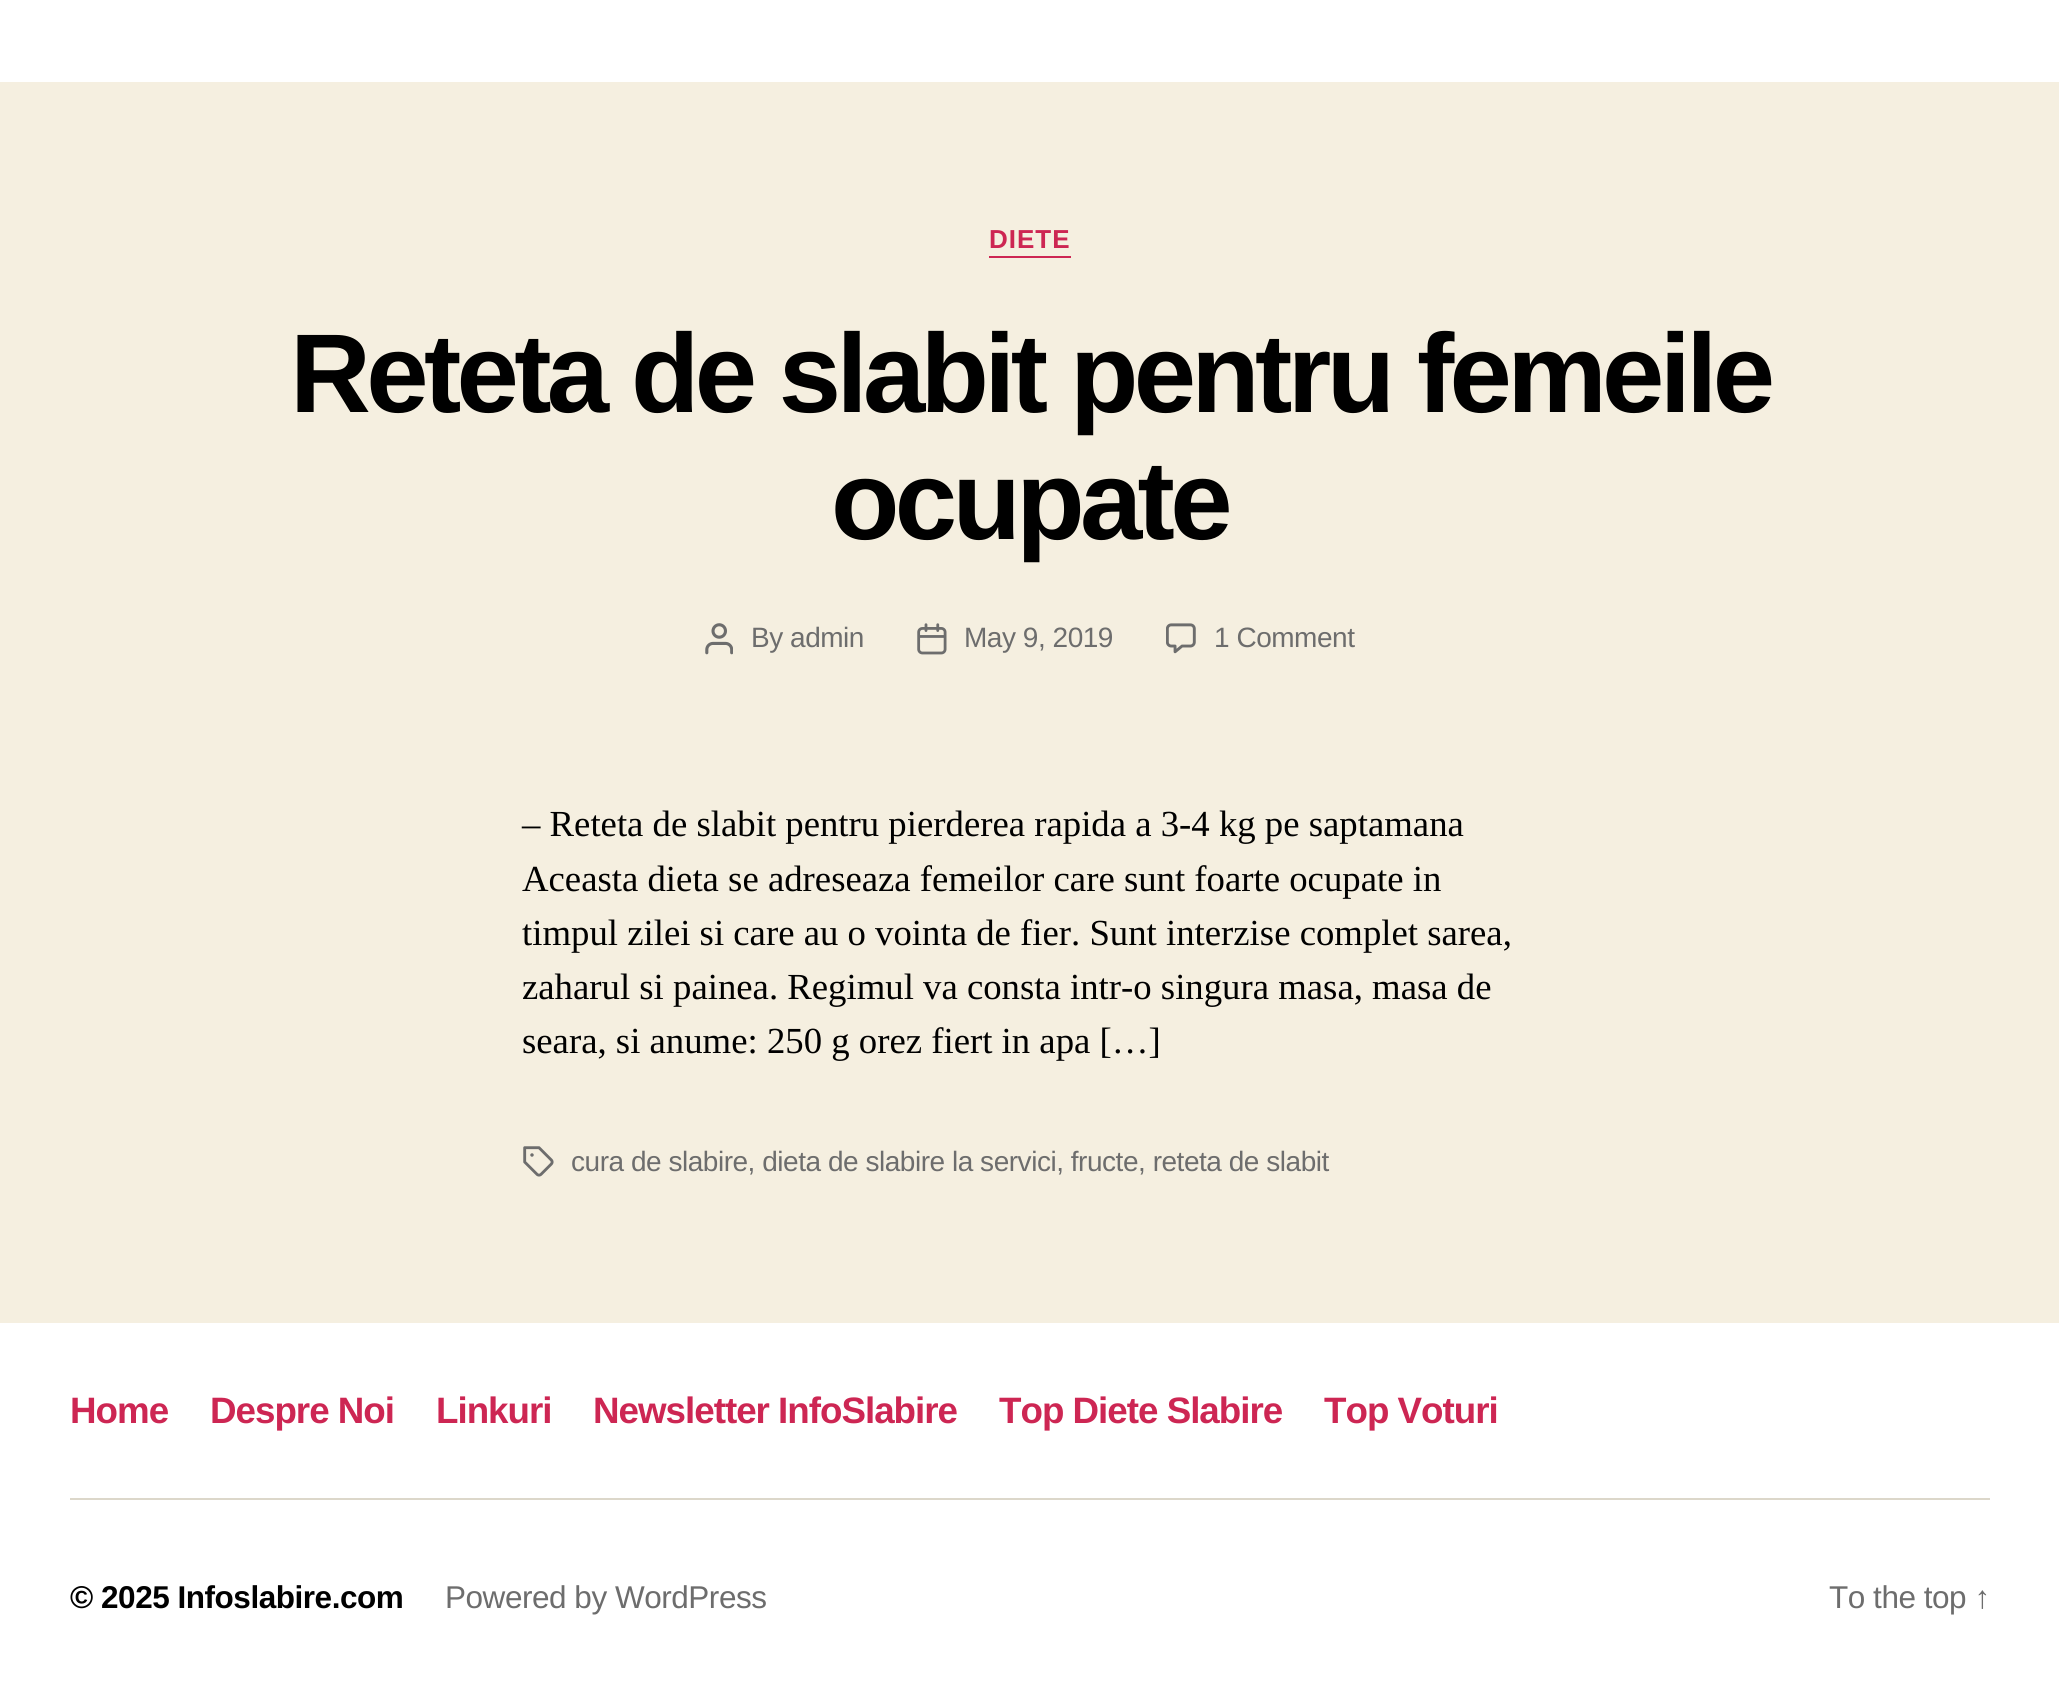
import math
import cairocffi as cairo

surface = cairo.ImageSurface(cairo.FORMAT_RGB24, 2059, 1696)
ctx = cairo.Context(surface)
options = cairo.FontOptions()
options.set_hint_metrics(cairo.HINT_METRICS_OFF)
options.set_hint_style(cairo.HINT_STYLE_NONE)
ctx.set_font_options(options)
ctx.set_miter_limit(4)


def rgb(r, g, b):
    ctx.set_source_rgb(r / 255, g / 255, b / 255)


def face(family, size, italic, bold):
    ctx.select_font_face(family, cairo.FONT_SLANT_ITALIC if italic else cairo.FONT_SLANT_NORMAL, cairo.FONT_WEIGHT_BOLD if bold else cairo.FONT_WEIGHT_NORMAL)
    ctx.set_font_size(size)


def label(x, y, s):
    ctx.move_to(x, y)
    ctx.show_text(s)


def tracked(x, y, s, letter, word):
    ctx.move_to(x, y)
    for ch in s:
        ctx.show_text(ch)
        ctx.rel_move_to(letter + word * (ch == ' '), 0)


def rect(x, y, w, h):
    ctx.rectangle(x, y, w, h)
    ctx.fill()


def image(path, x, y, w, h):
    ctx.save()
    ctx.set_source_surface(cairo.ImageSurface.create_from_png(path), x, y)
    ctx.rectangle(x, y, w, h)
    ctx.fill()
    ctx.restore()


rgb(245, 239, 224)
ctx.paint()
rgb(255, 255, 255)
rect(0, 0, 2059, 82)
rgb(205, 38, 83)
rect(989, 256, 82, 2)
face('Liberation Sans', 26, 0, 1)
tracked(989, 248, 'DIETE', 1, 0)
face('Liberation Sans', 112, 0, 1)
rgb(0, 0, 0)
tracked(290, 412, 'Reteta de slabit pentru femeile', -4.65, 0)
tracked(831, 539, 'ocupate', -4.65, 0)
image('image0.png', 705, 623, 28, 32)
face('Liberation Sans', 28, 0, 0)
rgb(109, 109, 109)
tracked(751, 647, 'By admin', -0.47, 0)
image('image1.png', 917, 623, 30, 32)
tracked(964, 647, 'May 9, 2019', -0.47, 0)
image('image2.png', 1166, 623, 30, 31)
tracked(1214, 647, '1 Comment', -0.47, 0)
face('Liberation Serif', 36.75, 0, 0)
rgb(0, 0, 0)
label(522, 836, '– Reteta de slabit pentru pierderea rapida a 3-4 kg pe saptamana')
label(522, 891, 'Aceasta dieta se adreseaza femeilor care sunt foarte ocupate in')
label(522, 945, 'timpul zilei si care au o vointa de fier. Sunt interzise complet sarea,')
label(522, 999, 'zaharul si painea. Regimul va consta intr-o singura masa, masa de')
label(522, 1053, 'seara, si anume: 250 g orez fiert in apa […]')
image('image3.png', 523, 1146, 31, 31)
face('Liberation Sans', 28, 0, 0)
rgb(109, 109, 109)
tracked(571, 1171, 'cura de slabire, dieta de slabire la servici, fructe, reteta de slabit', -0.47, 0)
rgb(255, 255, 255)
rect(0, 1323, 2059, 373)
rgb(220, 215, 202)
rect(70, 1498, 1920, 2)
face('Liberation Sans', 36.75, 0, 1)
rgb(205, 38, 83)
tracked(70, 1423, 'Home', -1, 0)
tracked(210, 1423, 'Despre Noi', -1, 0)
tracked(436, 1423, 'Linkuri', -1, 0)
tracked(593, 1423, 'Newsletter InfoSlabire', -1, 0)
tracked(999, 1423, 'Top Diete Slabire', -1, 0)
tracked(1324, 1423, 'Top Voturi', -1, 0)
face('Liberation Sans', 31.5, 0, 1)
rgb(0, 0, 0)
tracked(70, 1608, '© 2025 Infoslabire.com', -0.47, 0)
face('Liberation Sans', 31.5, 0, 0)
rgb(109, 109, 109)
tracked(445, 1608, 'Powered by WordPress', -0.47, 0)
tracked(1829, 1608, 'To the top ↑', -0.47, 0)
surface.write_to_png('render.png')
